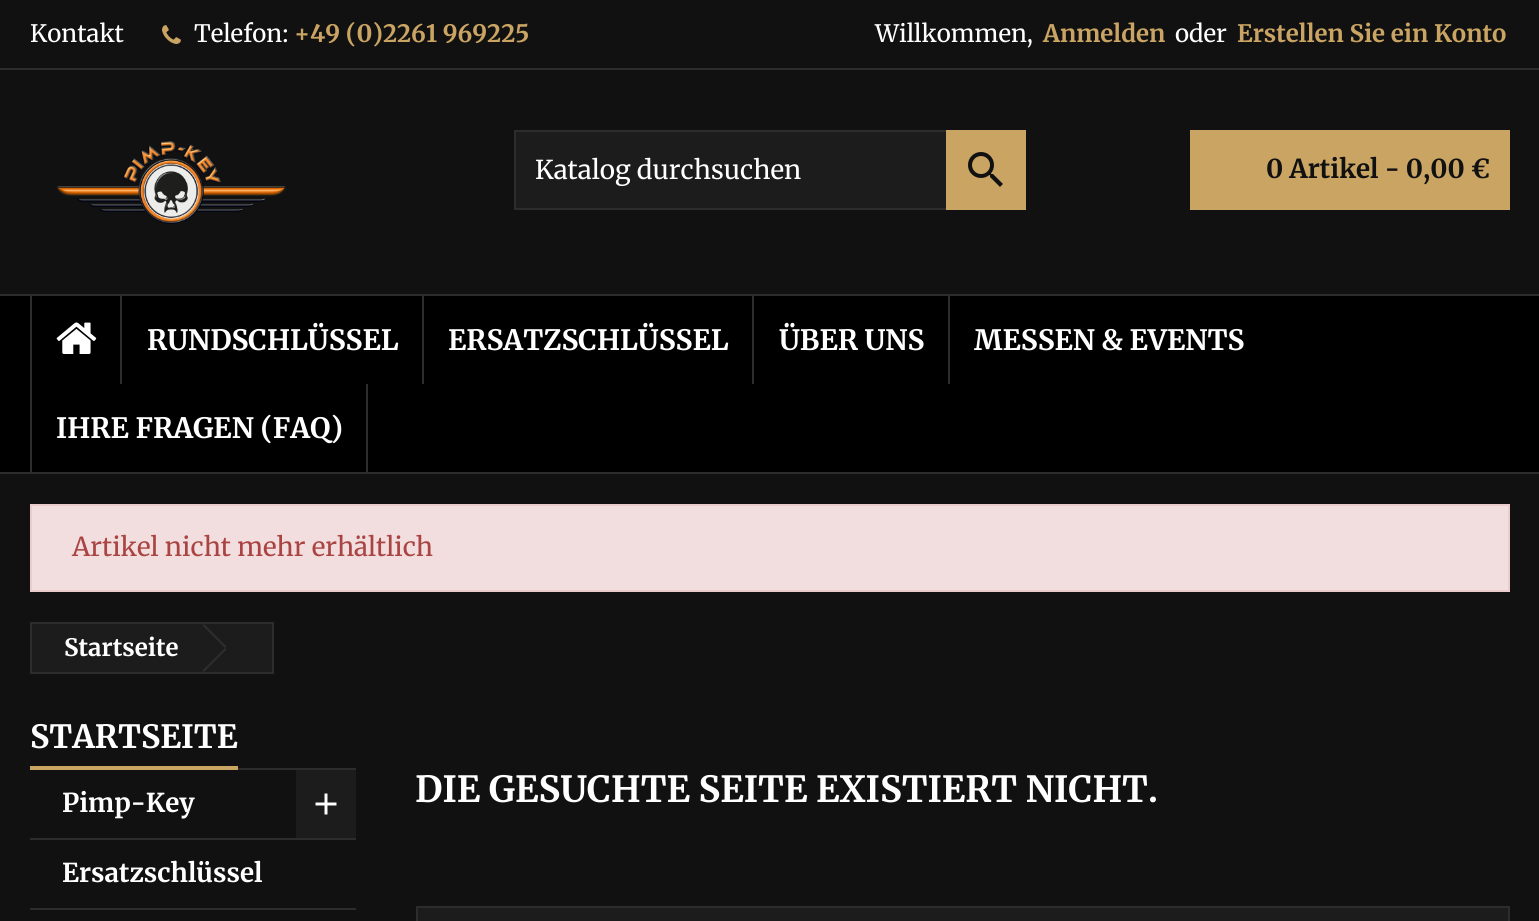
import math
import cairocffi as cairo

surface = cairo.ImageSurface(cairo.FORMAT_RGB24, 1539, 921)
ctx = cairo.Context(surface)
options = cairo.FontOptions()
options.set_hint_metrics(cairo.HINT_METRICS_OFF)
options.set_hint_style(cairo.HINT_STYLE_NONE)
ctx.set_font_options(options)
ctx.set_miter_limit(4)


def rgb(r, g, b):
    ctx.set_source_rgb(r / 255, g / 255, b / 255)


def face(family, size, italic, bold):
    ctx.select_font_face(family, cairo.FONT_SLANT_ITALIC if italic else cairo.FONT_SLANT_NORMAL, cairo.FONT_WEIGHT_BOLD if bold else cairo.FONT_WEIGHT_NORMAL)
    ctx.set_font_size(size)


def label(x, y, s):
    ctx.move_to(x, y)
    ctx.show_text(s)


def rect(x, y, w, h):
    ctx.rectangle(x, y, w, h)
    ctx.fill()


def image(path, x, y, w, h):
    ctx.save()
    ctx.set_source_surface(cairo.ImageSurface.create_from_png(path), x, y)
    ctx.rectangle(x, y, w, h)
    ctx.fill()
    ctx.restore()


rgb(17, 17, 17)
ctx.paint()
rgb(45, 45, 45)
rect(0, 68, 1539, 2)
face('Merriweather', 24, 0, 0)
rgb(255, 255, 255)
label(30, 42, 'Kontakt')
image('image0.png', 162, 25, 19, 19)
label(194, 42, 'Telefon:')
face('Merriweather', 24, 0, 1)
rgb(202, 164, 98)
label(294, 42, '+49 (0)2261 969225')
face('Merriweather', 24, 0, 0)
rgb(255, 255, 255)
label(875, 42, 'Willkommen,')
face('Merriweather', 24, 0, 1)
rgb(202, 164, 98)
label(1043, 42, 'Anmelden')
face('Merriweather', 24, 0, 0)
rgb(255, 255, 255)
label(1175, 42, 'oder')
face('Merriweather', 24, 0, 1)
rgb(202, 164, 98)
label(1237, 42, 'Erstellen Sie ein Konto')
image('image1.png', 56, 141, 230, 83)
rgb(28, 28, 28)
rect(516, 132, 430, 76)
ctx.rectangle(515, 131, 510, 78)
rgb(45, 45, 45)
ctx.stroke()
face('Merriweather', 26, 0, 0)
rgb(255, 255, 255)
label(535, 179, 'Katalog durchsuchen')
rgb(202, 164, 98)
rect(946, 130, 80, 80)
image('image2.png', 968, 152, 35, 35)
rect(1190, 130, 320, 80)
face('Merriweather', 26, 0, 1)
rgb(17, 17, 17)
label(1266, 178, '0 Artikel - 0,00 €')
rgb(0, 0, 0)
rect(0, 296, 1539, 176)
rgb(45, 45, 45)
rect(0, 294, 1539, 2)
rect(0, 472, 1539, 2)
rect(30, 296, 2, 176)
image('image3.png', 56, 322, 41, 32)
rect(120, 296, 2, 88)
face('Merriweather', 28, 0, 1)
rgb(255, 255, 255)
label(147, 350, 'RUNDSCHLÜSSEL')
rgb(45, 45, 45)
rect(422, 296, 2, 88)
rgb(255, 255, 255)
label(448, 350, 'ERSATZSCHLÜSSEL')
rgb(45, 45, 45)
rect(752, 296, 2, 88)
rgb(255, 255, 255)
label(779, 350, 'ÜBER UNS')
rgb(45, 45, 45)
rect(948, 296, 2, 88)
rgb(255, 255, 255)
label(974, 350, 'MESSEN & EVENTS')
rgb(45, 45, 45)
rect(366, 384, 2, 88)
rgb(255, 255, 255)
label(56, 438, 'IHRE FRAGEN (FAQ)')
rgb(242, 222, 222)
ctx.rectangle(31, 505, 1478, 86)
ctx.fill_preserve()
rgb(235, 204, 204)
ctx.stroke()
face('Merriweather', 26, 0, 0)
rgb(169, 68, 66)
label(72, 556, 'Artikel nicht mehr erhältlich')
rgb(28, 28, 28)
ctx.rectangle(31, 623, 242, 50)
ctx.fill_preserve()
rgb(45, 45, 45)
ctx.stroke()
face('Merriweather', 24, 0, 1)
rgb(255, 255, 255)
label(64, 656, 'Startseite')
rgb(45, 45, 45)
ctx.new_path()
ctx.move_to(204, 624)
ctx.line_to(226.5, 646.5)
ctx.line_to(225, 648)
ctx.line_to(202.5, 625.5)
ctx.close_path()
ctx.move_to(225, 648)
ctx.line_to(226.5, 649.5)
ctx.line_to(204, 672)
ctx.line_to(202.5, 670.5)
ctx.close_path()
ctx.fill()
rect(238, 768, 118, 2)
rgb(202, 164, 98)
rect(30, 766, 208, 4)
face('Merriweather', 32, 0, 1)
rgb(255, 255, 255)
label(30, 748, 'STARTSEITE')
rgb(45, 45, 45)
rect(30, 838, 326, 2)
face('Merriweather', 26, 0, 1)
rgb(255, 255, 255)
label(62, 812, 'Pimp-Key')
rgb(28, 28, 28)
rect(296, 770, 60, 68)
image('image4.png', 315, 793, 22, 22)
rgb(45, 45, 45)
rect(30, 908, 326, 2)
rgb(255, 255, 255)
label(62, 882, 'Ersatzschlüssel')
face('Merriweather', 36, 0, 1)
label(415, 802, 'DIE GESUCHTE SEITE EXISTIERT NICHT.')
rgb(28, 28, 28)
ctx.rectangle(417, 907, 1092, 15)
ctx.fill_preserve()
rgb(45, 45, 45)
ctx.stroke()
surface.write_to_png('render.png')
